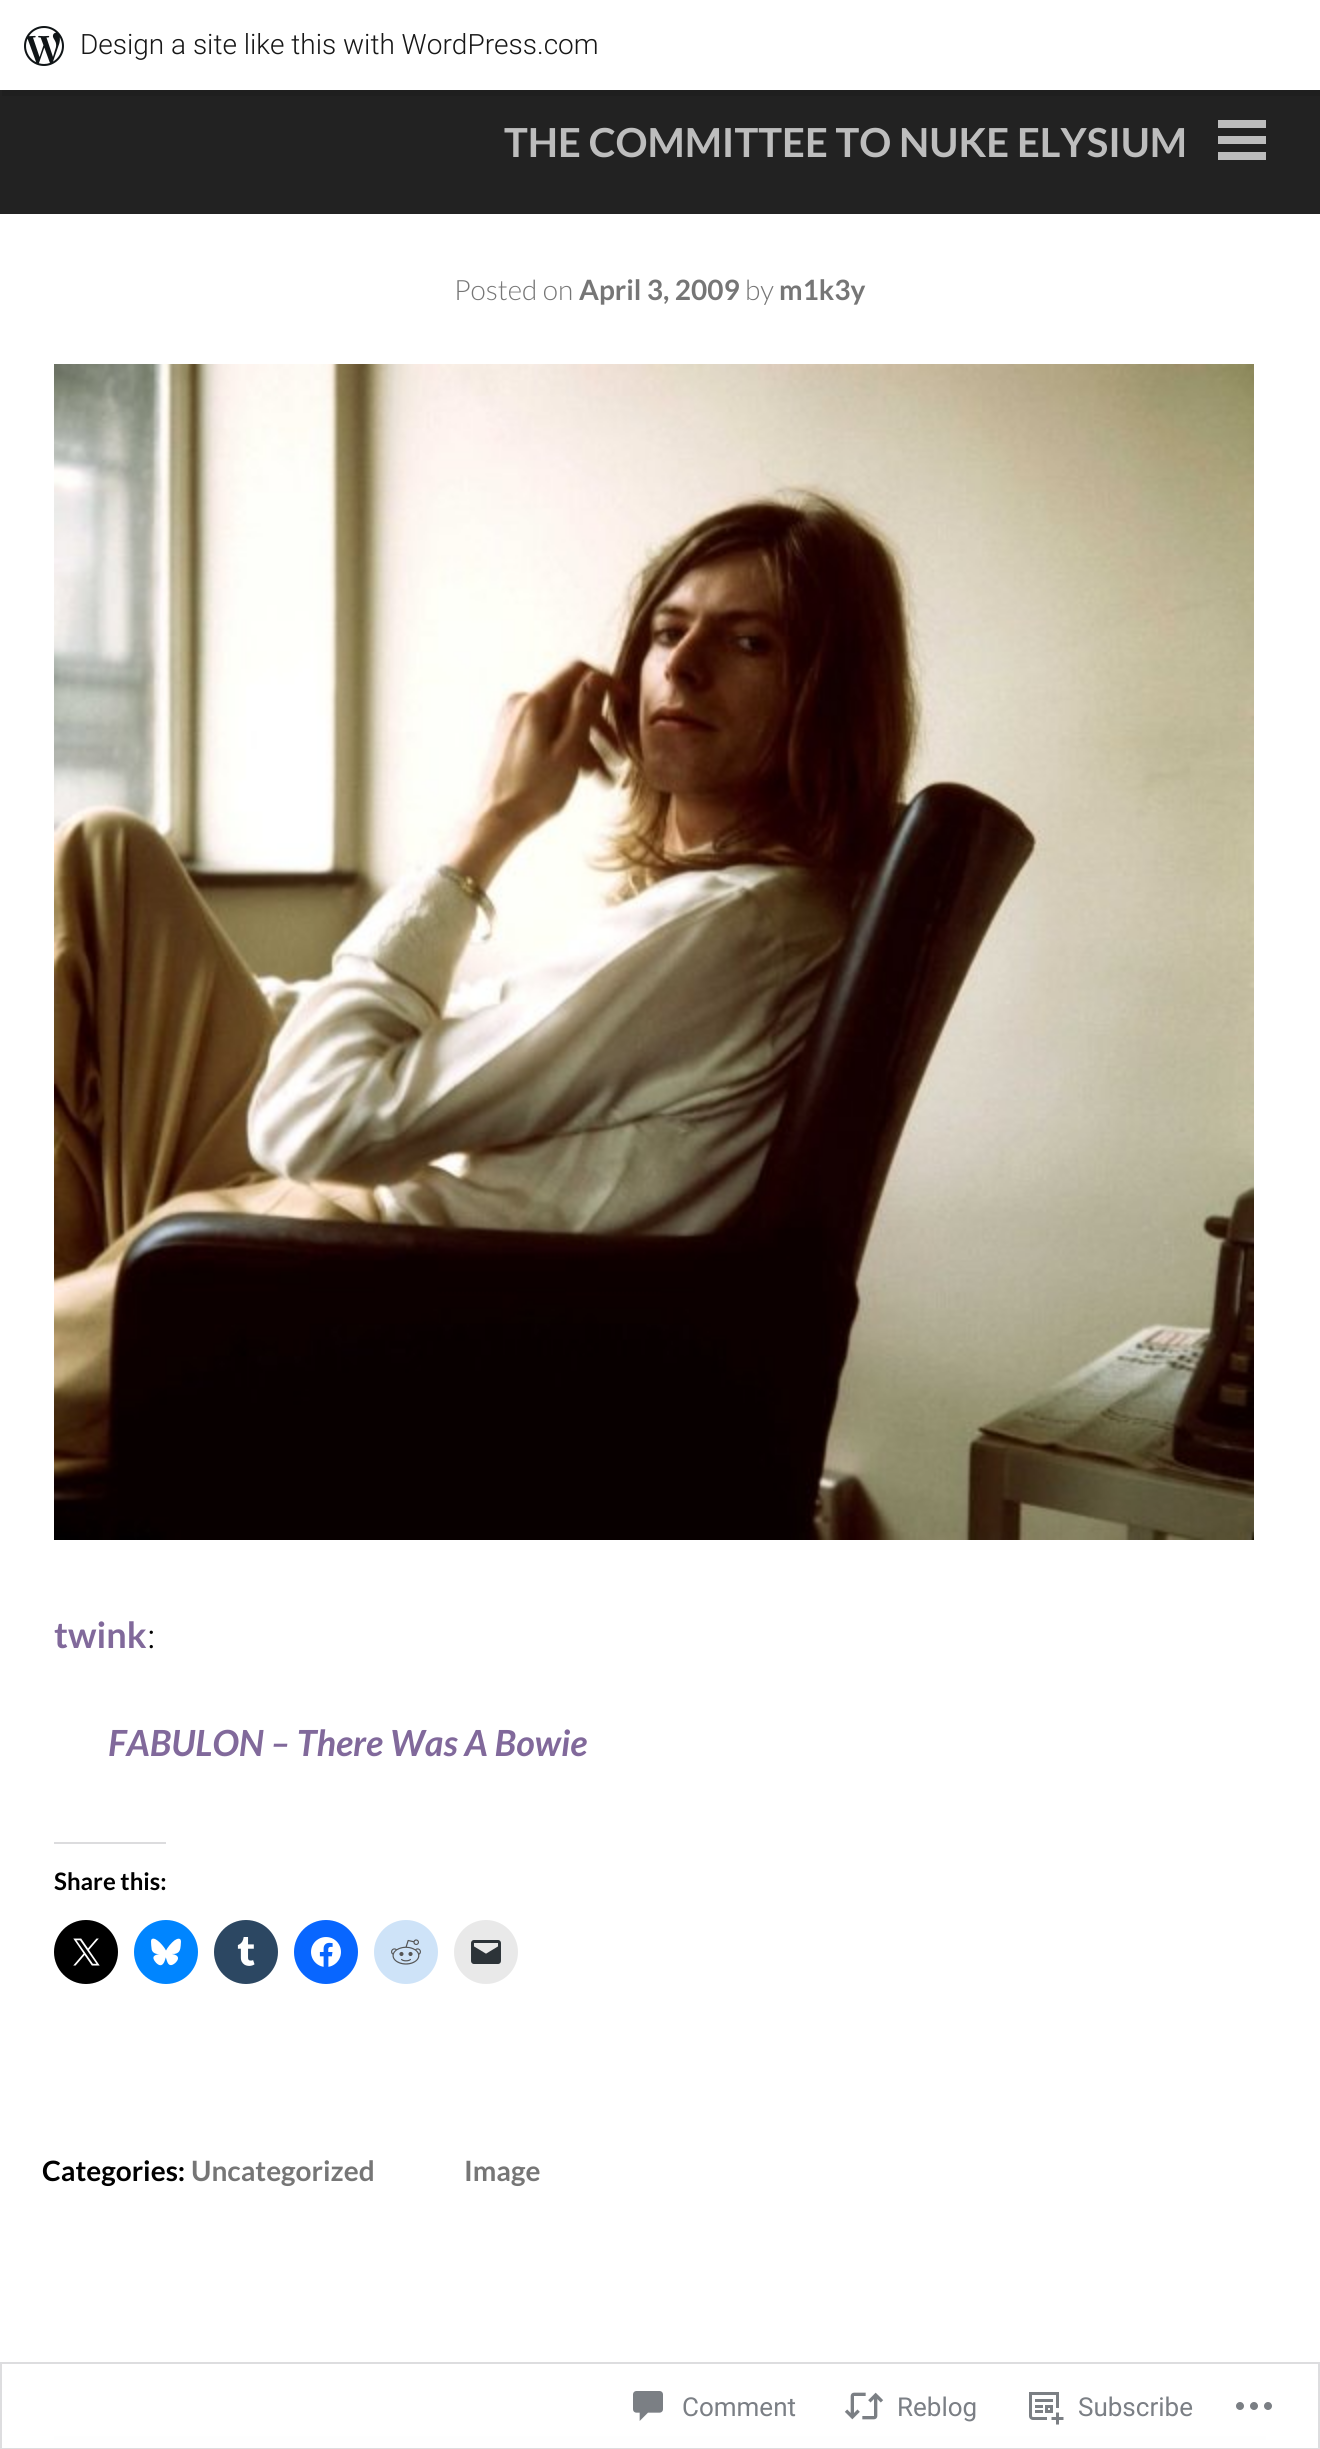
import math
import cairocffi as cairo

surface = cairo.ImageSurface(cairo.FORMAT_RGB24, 1320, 2449)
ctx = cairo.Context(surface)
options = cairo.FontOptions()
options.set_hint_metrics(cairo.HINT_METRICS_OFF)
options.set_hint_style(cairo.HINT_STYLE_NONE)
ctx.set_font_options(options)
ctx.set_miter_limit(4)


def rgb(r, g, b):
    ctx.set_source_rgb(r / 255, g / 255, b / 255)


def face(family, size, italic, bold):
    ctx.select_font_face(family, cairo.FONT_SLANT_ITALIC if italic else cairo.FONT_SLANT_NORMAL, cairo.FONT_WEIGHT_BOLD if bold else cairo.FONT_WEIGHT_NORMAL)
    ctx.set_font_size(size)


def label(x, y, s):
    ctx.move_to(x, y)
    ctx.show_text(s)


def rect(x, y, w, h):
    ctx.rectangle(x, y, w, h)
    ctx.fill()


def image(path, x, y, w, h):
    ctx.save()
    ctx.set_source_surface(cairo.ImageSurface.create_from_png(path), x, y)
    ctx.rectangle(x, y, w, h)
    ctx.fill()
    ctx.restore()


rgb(255, 255, 255)
ctx.paint()
rgb(34, 34, 34)
rect(0, 90, 1320, 124)
rgb(31, 31, 31)
ctx.new_path()
ctx.move_to(2, 90)
ctx.line_to(2, 96)
ctx.line_to(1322, 96)
ctx.line_to(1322, 6)
ctx.line_to(1320, 6)
ctx.line_to(1320, 90)
ctx.close_path()
ctx.fill()
image('image0.png', 24, 26, 40, 40)
face('Roboto Light', 28, 0, 0)
rgb(23, 23, 23)
label(80, 54, 'Design a site like this with WordPress.com')
face('Lato', 40, 0, 1)
rgb(189, 189, 189)
label(504, 157, 'THE COMMITTEE TO NUKE ELYSIUM')
rect(1218, 136, 48, 8)
rect(1218, 120, 48, 8)
rect(1218, 152, 48, 8)
face('Lato Light', 28, 0, 0)
rgb(118, 118, 118)
label(454, 300, 'Posted on')
face('Lato', 28, 0, 1)
label(579, 300, 'April 3, 2009')
face('Lato Light', 28, 0, 0)
label(745, 300, 'by')
face('Lato', 28, 0, 1)
label(779, 300, 'm1k3y')
image('image1.png', 54, 364, 1200, 1176)
face('Lato', 36, 0, 1)
rgb(129, 105, 155)
label(54, 1648, 'twink')
face('Lato Light', 36, 0, 0)
rgb(0, 0, 0)
label(147, 1648, ':')
face('Lato', 36, 1, 1)
rgb(129, 105, 155)
label(108, 1756, 'FABULON – There Was A Bowie')
rgb(220, 220, 222)
rect(54, 1842, 112, 2)
face('Lato', 24, 0, 1)
rgb(0, 0, 0)
label(54, 1890, 'Share this:')
ctx.new_path()
ctx.arc(86, 1952, 32, 0, 2 * math.pi)
ctx.fill()
image('image2.png', 73, 1938, 27, 28)
rgb(0, 133, 255)
ctx.arc(166, 1952, 32, 0, 2 * math.pi)
ctx.fill()
image('image3.png', 151, 1938, 30, 28)
rgb(44, 71, 98)
ctx.arc(246, 1952, 32, 0, 2 * math.pi)
ctx.fill()
image('image4.png', 237, 1937, 18, 29)
rgb(8, 102, 255)
ctx.arc(326, 1952, 32, 0, 2 * math.pi)
ctx.fill()
image('image5.png', 311, 1937, 30, 30)
rgb(206, 227, 248)
ctx.arc(406, 1952, 32, 0, 2 * math.pi)
ctx.fill()
image('image6.png', 391, 1939, 30, 26)
rgb(233, 233, 233)
ctx.arc(486, 1952, 32, 0, 2 * math.pi)
ctx.fill()
image('image7.png', 471, 1940, 30, 24)
face('Lato', 28, 0, 1)
rgb(0, 0, 0)
label(42, 2181, 'Categories:')
rgb(118, 118, 118)
label(191, 2181, 'Uncategorized')
label(464, 2181, 'Image')
rgb(220, 220, 222)
rect(54, 2436, 1212, 4)
ctx.set_source_rgba(1, 1, 1, 0.98)
rect(54, 2436, 1212, 4)
ctx.rectangle(1, 2363, 1318, 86)
ctx.set_source_rgba(0.863, 0.863, 0.871, 0.98)
ctx.stroke()
image('image8.png', 633, 2391, 30, 30)
face('Roboto', 26, 0, 0)
rgb(123, 127, 133)
label(682, 2416, 'Comment')
image('image9.png', 844, 2392, 40, 28)
label(897, 2416, 'Reblog')
image('image10.png', 1029, 2392, 35, 33)
label(1078, 2416, 'Subscribe')
image('image11.png', 1236, 2402, 36, 8)
surface.write_to_png('render.png')
